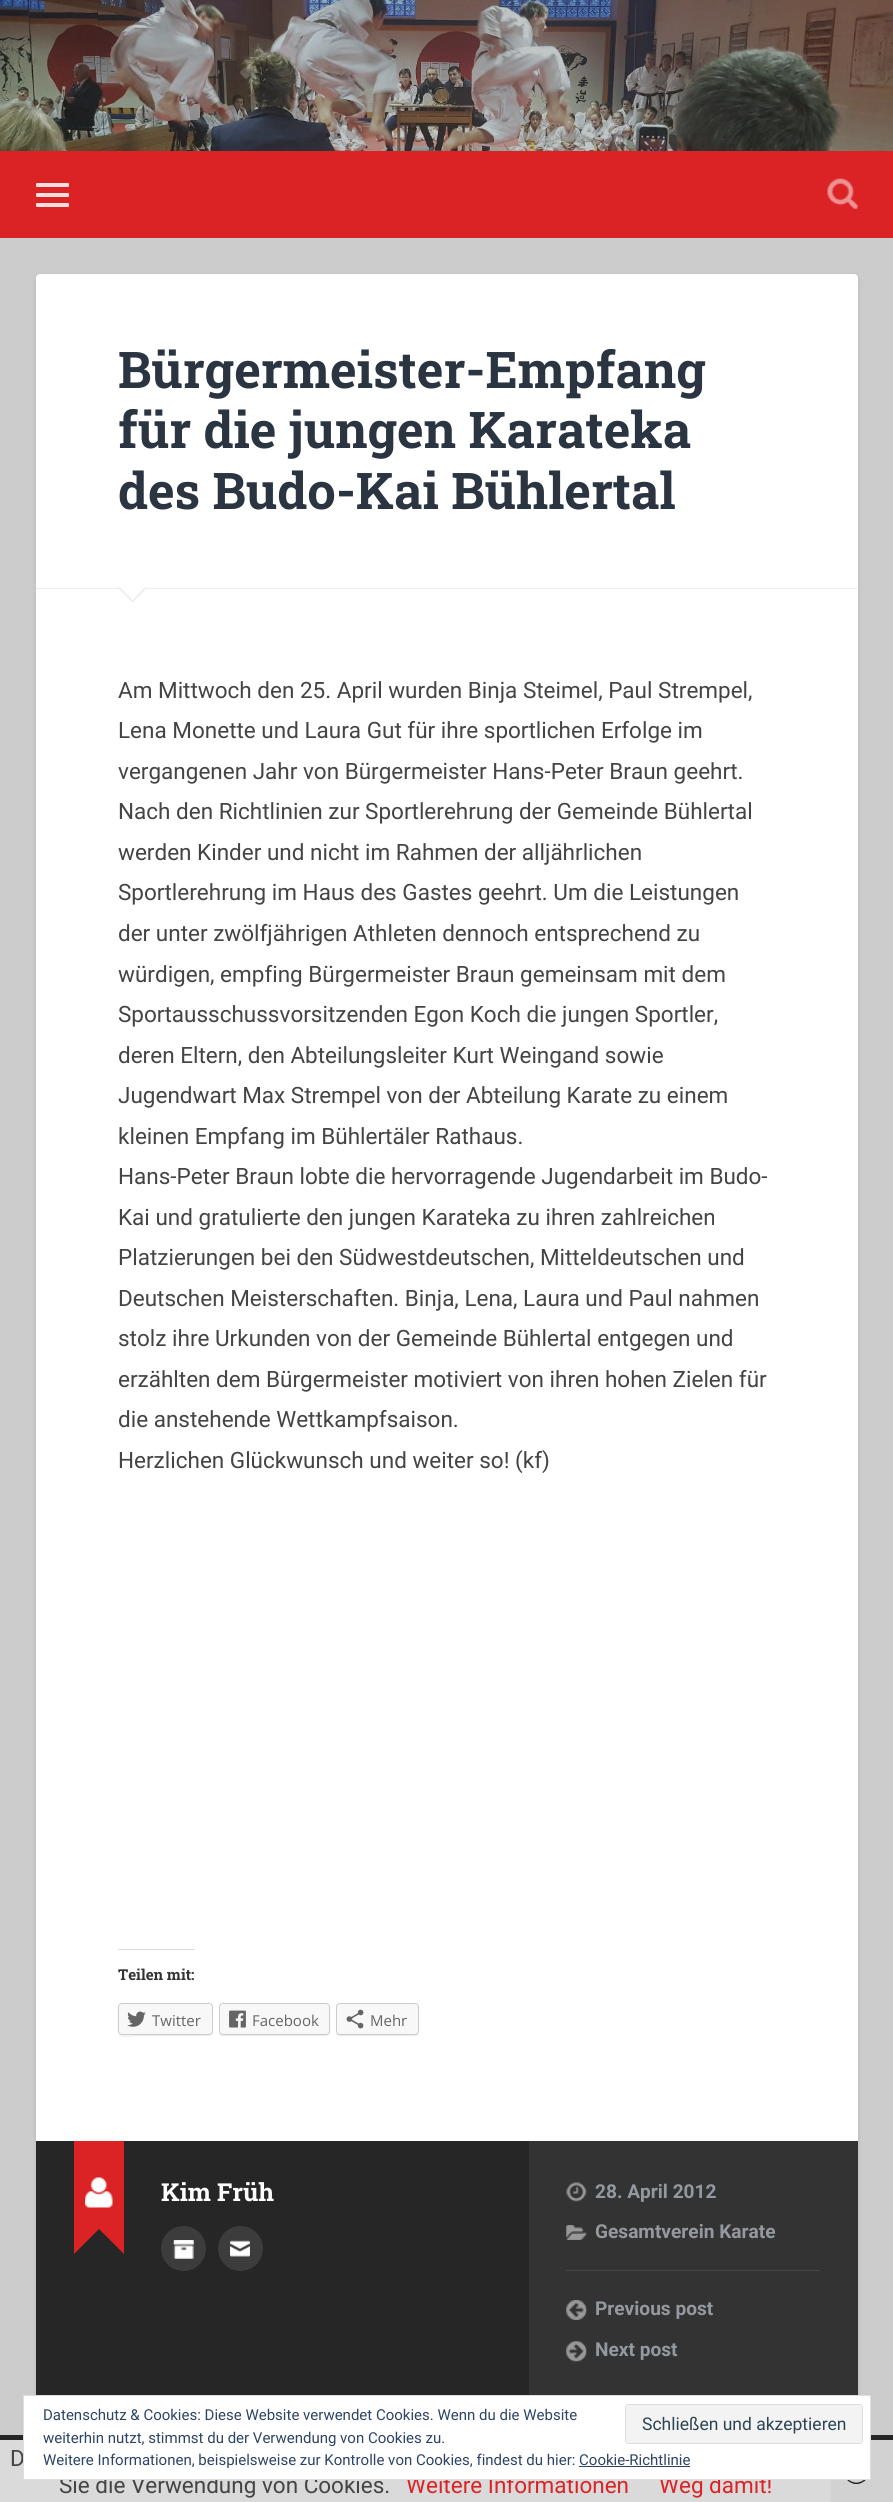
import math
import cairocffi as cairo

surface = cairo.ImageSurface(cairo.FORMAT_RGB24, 893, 2502)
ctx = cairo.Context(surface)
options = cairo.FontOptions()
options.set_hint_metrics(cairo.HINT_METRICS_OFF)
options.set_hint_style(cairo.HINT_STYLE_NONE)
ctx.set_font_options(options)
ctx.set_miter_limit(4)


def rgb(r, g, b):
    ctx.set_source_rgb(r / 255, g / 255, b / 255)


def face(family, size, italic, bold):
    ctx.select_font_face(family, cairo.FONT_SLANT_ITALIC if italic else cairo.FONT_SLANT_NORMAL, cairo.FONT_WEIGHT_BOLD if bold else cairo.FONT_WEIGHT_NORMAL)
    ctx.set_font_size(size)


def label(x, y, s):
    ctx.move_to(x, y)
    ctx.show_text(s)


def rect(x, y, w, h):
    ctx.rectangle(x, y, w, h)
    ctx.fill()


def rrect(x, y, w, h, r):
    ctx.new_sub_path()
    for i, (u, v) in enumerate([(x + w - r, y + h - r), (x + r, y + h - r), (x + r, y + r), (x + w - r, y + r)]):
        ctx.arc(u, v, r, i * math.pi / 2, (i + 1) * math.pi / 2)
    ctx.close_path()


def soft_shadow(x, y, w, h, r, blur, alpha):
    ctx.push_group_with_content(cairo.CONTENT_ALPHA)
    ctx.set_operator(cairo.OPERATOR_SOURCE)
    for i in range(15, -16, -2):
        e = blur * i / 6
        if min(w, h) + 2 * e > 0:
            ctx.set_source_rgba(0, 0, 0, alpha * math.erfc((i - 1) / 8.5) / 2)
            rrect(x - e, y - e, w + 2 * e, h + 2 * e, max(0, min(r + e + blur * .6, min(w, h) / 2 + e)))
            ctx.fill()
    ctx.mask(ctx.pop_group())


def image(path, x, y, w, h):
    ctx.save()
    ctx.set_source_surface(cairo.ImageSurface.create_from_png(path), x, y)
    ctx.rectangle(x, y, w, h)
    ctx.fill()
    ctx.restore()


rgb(204, 204, 204)
ctx.paint()
image('image0.png', 0, 0, 893, 151)
rgb(219, 35, 38)
rect(0, 151, 893, 87)
rgb(250, 222, 222)
rrect(36, 183, 33, 4, 1)
ctx.fill()
rrect(36, 193, 33, 4, 1)
ctx.fill()
rrect(36, 203, 33, 4, 1)
ctx.fill()
image('image1.png', 827, 178, 31, 31)
rgb(0, 0, 0)
soft_shadow(36, 275, 822, 2126, 4, 2.5, 0.1)
rgb(255, 255, 255)
rrect(36, 274, 822, 2126, 4)
ctx.fill()
rgb(238, 238, 238)
rect(36, 588, 822, 1)
face('Roboto Slab', 50.6, 0, 1)
rgb(43, 53, 66)
label(118, 388, 'Bürgermeister-Empfang')
label(118, 448, 'für die jungen Karateka')
label(118, 509, 'des Budo-Kai Bühlertal')
rgb(238, 238, 238)
ctx.new_path()
ctx.move_to(117.5, 587.5)
ctx.line_to(147.5, 587.5)
ctx.line_to(132.5, 602.5)
ctx.close_path()
ctx.fill()
rgb(255, 255, 255)
ctx.new_path()
ctx.move_to(119, 586)
ctx.line_to(146, 586)
ctx.line_to(132.5, 600)
ctx.close_path()
ctx.fill()
face('Roboto', 22.5, 0, 0)
rgb(68, 68, 68)
label(118, 698, 'Am Mittwoch den 25. April wurden Binja Steimel, Paul Strempel,')
label(118, 738, 'Lena Monette und Laura Gut für ihre sportlichen Erfolge im')
label(118, 779, 'vergangenen Jahr von Bürgermeister Hans-Peter Braun geehrt.')
label(118, 819, 'Nach den Richtlinien zur Sportlerehrung der Gemeinde Bühlertal')
label(118, 860, 'werden Kinder und nicht im Rahmen der alljährlichen')
label(118, 900, 'Sportlerehrung im Haus des Gastes geehrt. Um die Leistungen')
label(118, 941, 'der unter zwölfjährigen Athleten dennoch entsprechend zu')
label(118, 982, 'würdigen, empfing Bürgermeister Braun gemeinsam mit dem')
label(118, 1022, 'Sportausschussvorsitzenden Egon Koch die jungen Sportler,')
label(118, 1063, 'deren Eltern, den Abteilungsleiter Kurt Weingand sowie')
label(118, 1103, 'Jugendwart Max Strempel von der Abteilung Karate zu einem')
label(118, 1144, 'kleinen Empfang im Bühlertäler Rathaus.')
label(118, 1184, 'Hans-Peter Braun lobte die hervorragende Jugendarbeit im Budo-')
label(118, 1225, 'Kai und gratulierte den jungen Karateka zu ihren zahlreichen')
label(118, 1265, 'Platzierungen bei den Südwestdeutschen, Mitteldeutschen und')
label(118, 1306, 'Deutschen Meisterschaften. Binja, Lena, Laura und Paul nahmen')
label(118, 1346, 'stolz ihre Urkunden von der Gemeinde Bühlertal entgegen und')
label(118, 1387, 'erzählten dem Bürgermeister motiviert von ihren hohen Zielen für')
label(118, 1427, 'die anstehende Wettkampfsaison.')
label(118, 1468, 'Herzlichen Glückwunsch und weiter so! (kf)')
rgb(221, 221, 221)
rect(118, 1949, 77, 1)
face('Roboto Slab', 15, 0, 1)
rgb(51, 51, 51)
label(118, 1980, 'Teilen mit:')
rgb(235, 235, 235)
ctx.new_path()
ctx.move_to(118, 2034)
ctx.curve_to(121, 2039, 133, 2036, 136, 2036)
ctx.line_to(194, 2036)
ctx.curve_to(215, 2036, 213, 2039, 213, 2020)
ctx.curve_to(213, 2017, 214, 2009, 212, 2006)
ctx.line_to(212, 2027)
ctx.curve_to(212, 2030, 213, 2035, 209, 2035)
ctx.line_to(136, 2035)
ctx.curve_to(136, 2035, 121, 2037, 118, 2034)
ctx.close_path()
ctx.fill()
rgb(248, 248, 248)
rrect(118.5, 2003.5, 94, 31, 3.5)
ctx.fill_preserve()
rgb(204, 204, 204)
ctx.set_line_width(1)
ctx.stroke()
image('image2.png', 127, 2011, 19, 16)
face('Open Sans', 15, 0, 0)
rgb(101, 101, 101)
label(152, 2026, 'Twitter')
rgb(235, 235, 235)
ctx.new_path()
ctx.move_to(219, 2033)
ctx.curve_to(219, 2035, 221, 2036, 223, 2036)
ctx.line_to(326, 2036)
ctx.curve_to(328, 2036, 330, 2034, 330, 2032)
ctx.line_to(330, 2031)
ctx.curve_to(330, 2033, 328, 2035, 326, 2035)
ctx.line_to(222, 2035)
ctx.curve_to(221, 2035, 220, 2034, 219, 2033)
ctx.close_path()
ctx.fill()
rgb(248, 248, 248)
rrect(219.5, 2003.5, 110, 31, 3.5)
ctx.fill_preserve()
rgb(204, 204, 204)
ctx.stroke()
image('image3.png', 229, 2010, 17, 18)
rgb(101, 101, 101)
label(252, 2026, 'Facebook')
rgb(235, 235, 235)
ctx.new_path()
ctx.move_to(336, 2007)
ctx.line_to(336, 2024)
ctx.curve_to(336, 2039, 336, 2036, 352, 2036)
ctx.line_to(402, 2036)
ctx.curve_to(419, 2036, 419, 2039, 419, 2024)
ctx.line_to(419, 2007)
ctx.line_to(419, 2031)
ctx.curve_to(419, 2033, 417, 2035, 415, 2035)
ctx.line_to(340, 2035)
ctx.curve_to(338, 2035, 336, 2033, 336, 2031)
ctx.close_path()
ctx.fill()
rgb(248, 248, 248)
rrect(336.5, 2003.5, 82, 31, 3.5)
ctx.fill_preserve()
rgb(204, 204, 204)
ctx.stroke()
image('image4.png', 346, 2009, 18, 20)
rgb(101, 101, 101)
label(370, 2026, 'Mehr')
rgb(38, 38, 38)
rect(36, 2141, 493, 254)
rgb(219, 35, 38)
ctx.new_path()
ctx.move_to(124, 2204)
ctx.line_to(124, 2254)
ctx.line_to(99, 2229)
ctx.close_path()
ctx.move_to(74, 2254)
ctx.line_to(74, 2204)
ctx.line_to(99, 2229)
ctx.close_path()
ctx.fill()
rect(74, 2141, 50, 88)
image('image5.png', 85, 2177, 28, 31)
face('Roboto Slab', 24.75, 0, 1)
rgb(255, 255, 255)
label(161, 2201, 'Kim Früh')
rgb(60, 60, 60)
ctx.new_path()
ctx.arc(183.5, 2248.5, 22.5, 0, 2 * math.pi)
ctx.fill()
image('image6.png', 173, 2240, 21, 19)
ctx.arc(240.5, 2248.5, 22.5, 0, 2 * math.pi)
ctx.fill()
image('image7.png', 230, 2240, 20, 17)
rgb(51, 51, 51)
rect(529, 2141, 329, 254)
image('image8.png', 566, 2182, 21, 20)
face('Roboto', 19.1, 0, 1)
rgb(148, 153, 160)
label(595, 2198, '28. April 2012')
image('image9.png', 566, 2225, 21, 15)
label(595, 2238, 'Gesamtverein Karate')
rgb(71, 71, 71)
rect(566, 2270, 254, 1)
image('image10.png', 566, 2300, 21, 20)
rgb(148, 153, 160)
label(595, 2315, 'Previous post')
image('image11.png', 566, 2341, 21, 21)
label(595, 2356, 'Next post')
rgb(38, 38, 38)
rect(0, 2435, 893, 5)
rgb(218, 218, 218)
rect(0, 2440, 831, 62)
face('Roboto', 22.5, 0, 0)
rgb(68, 68, 68)
label(10, 2466, 'D')
label(59, 2493, 'Sie die Verwendung von Cookies.')
rgb(219, 35, 38)
label(406, 2493, 'Weitere Informationen')
label(659, 2493, 'Weg damit!')
rgb(210, 210, 210)
rect(831, 2440, 62, 62)
rgb(255, 255, 255)
ctx.rectangle(23.5, 2395.5, 847, 84)
ctx.fill_preserve()
rgb(222, 222, 222)
ctx.stroke()
face('Roboto', 15, 0, 0)
rgb(46, 68, 103)
label(43, 2420, 'Datenschutz & Cookies: Diese Website verwendet Cookies. Wenn du die Website')
rgb(243, 243, 243)
rrect(625.5, 2404.5, 237, 39, 3.5)
ctx.fill_preserve()
rgb(222, 222, 222)
ctx.stroke()
face('Roboto', 17.5, 0, 0)
rgb(46, 68, 83)
label(642, 2430, 'Schließen und akzeptieren')
face('Roboto', 15, 0, 0)
rgb(46, 68, 103)
label(43, 2443, 'weiterhin nutzt, stimmst du der Verwendung von Cookies zu.')
label(43, 2465, 'Weitere Informationen, beispielsweise zur Kontrolle von Cookies, findest du hier: Cookie-Richtlinie')
rect(579, 2466, 111, 1)
image('image12.png', 847, 2480, 19, 4)
surface.write_to_png('render.png')
